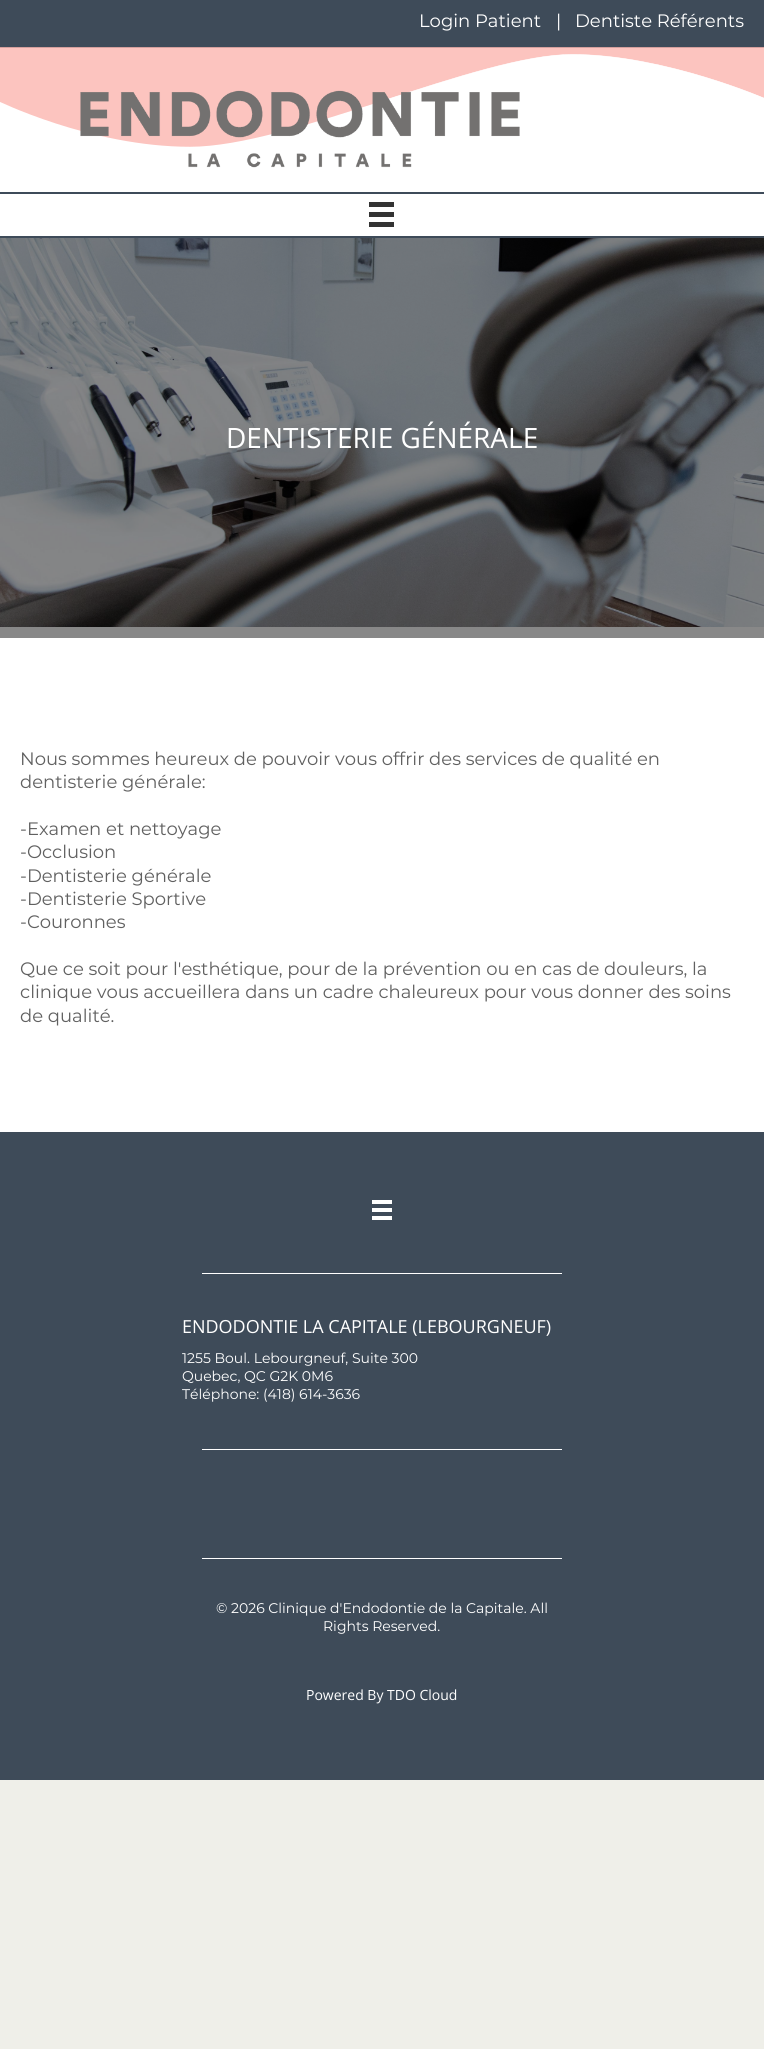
import math
import cairocffi as cairo

surface = cairo.ImageSurface(cairo.FORMAT_RGB24, 764, 2049)
ctx = cairo.Context(surface)
options = cairo.FontOptions()
options.set_hint_metrics(cairo.HINT_METRICS_OFF)
options.set_hint_style(cairo.HINT_STYLE_NONE)
ctx.set_font_options(options)
ctx.set_miter_limit(4)


def rgb(r, g, b):
    ctx.set_source_rgb(r / 255, g / 255, b / 255)


def face(family, size, italic, bold):
    ctx.select_font_face(family, cairo.FONT_SLANT_ITALIC if italic else cairo.FONT_SLANT_NORMAL, cairo.FONT_WEIGHT_BOLD if bold else cairo.FONT_WEIGHT_NORMAL)
    ctx.set_font_size(size)


def label(x, y, s):
    ctx.move_to(x, y)
    ctx.show_text(s)


def rect(x, y, w, h):
    ctx.rectangle(x, y, w, h)
    ctx.fill()


def image(path, x, y, w, h):
    ctx.save()
    ctx.set_source_surface(cairo.ImageSurface.create_from_png(path), x, y)
    ctx.rectangle(x, y, w, h)
    ctx.fill()
    ctx.restore()


rgb(239, 239, 233)
ctx.paint()
rgb(62, 75, 89)
rect(0, 0, 764, 48)
face('Montserrat', 18, 0, 0)
rgb(255, 255, 255)
label(419, 27, 'Login Patient')
label(556, 27, '|')
label(575, 27, 'Dentiste Référents')
rect(0, 48, 764, 144)
image('image0.png', 0, 47, 764, 100)
image('image1.png', 80, 90, 440, 78)
rect(0, 194, 764, 42)
rgb(62, 75, 89)
rect(0, 192, 764, 2)
rect(0, 236, 764, 2)
rgb(51, 51, 51)
rect(369, 202, 25, 5)
rect(369, 212, 25, 5)
rect(369, 222, 25, 5)
rgb(255, 255, 255)
rect(0, 638, 764, 494)
rgb(136, 136, 136)
rect(0, 627, 764, 11)
image('image2.png', 0, 238, 764, 389)
face('Open Sans', 28, 0, 0)
rgb(255, 255, 255)
label(226, 448, 'DENTISTERIE GÉNÉRALE')
face('Montserrat', 18, 0, 0)
rgb(96, 96, 96)
label(20, 765, 'Nous sommes heureux de pouvoir vous offrir des services de qualité en')
label(20, 788, 'dentisterie générale:')
label(20, 835, '-Examen et nettoyage')
label(20, 858, '-Occlusion')
label(20, 882, '-Dentisterie générale')
label(20, 905, '-Dentisterie Sportive')
label(20, 928, '-Couronnes')
label(20, 975, 'Que ce soit pour l\'esthétique, pour de la prévention ou en cas de douleurs, la')
label(20, 998, 'clinique vous accueillera dans un cadre chaleureux pour vous donner des soins')
label(20, 1022, 'de qualité.')
rgb(62, 75, 89)
rect(0, 1132, 764, 648)
rgb(255, 255, 255)
rect(372, 1200, 20, 4)
rect(372, 1208, 20, 4)
rect(372, 1216, 20, 4)
rect(202, 1273, 360, 1)
face('Open Sans', 18, 0, 0)
label(182, 1333, 'ENDODONTIE LA CAPITALE (LEBOURGNEUF)')
face('Montserrat', 14, 0, 0)
label(182, 1363, '1255 Boul. Lebourgneuf, Suite 300')
label(182, 1381, 'Quebec, QC G2K 0M6')
label(182, 1399, 'Téléphone: (418) 614-3636')
rect(202, 1449, 360, 1)
rect(202, 1558, 360, 1)
label(216, 1613, '© 2026 Clinique d\'Endodontie de la Capitale. All')
label(323, 1631, 'Rights Reserved.')
face('Open Sans', 14, 0, 0)
label(306, 1700, 'Powered By TDO Cloud')
surface.write_to_png('render.png')
